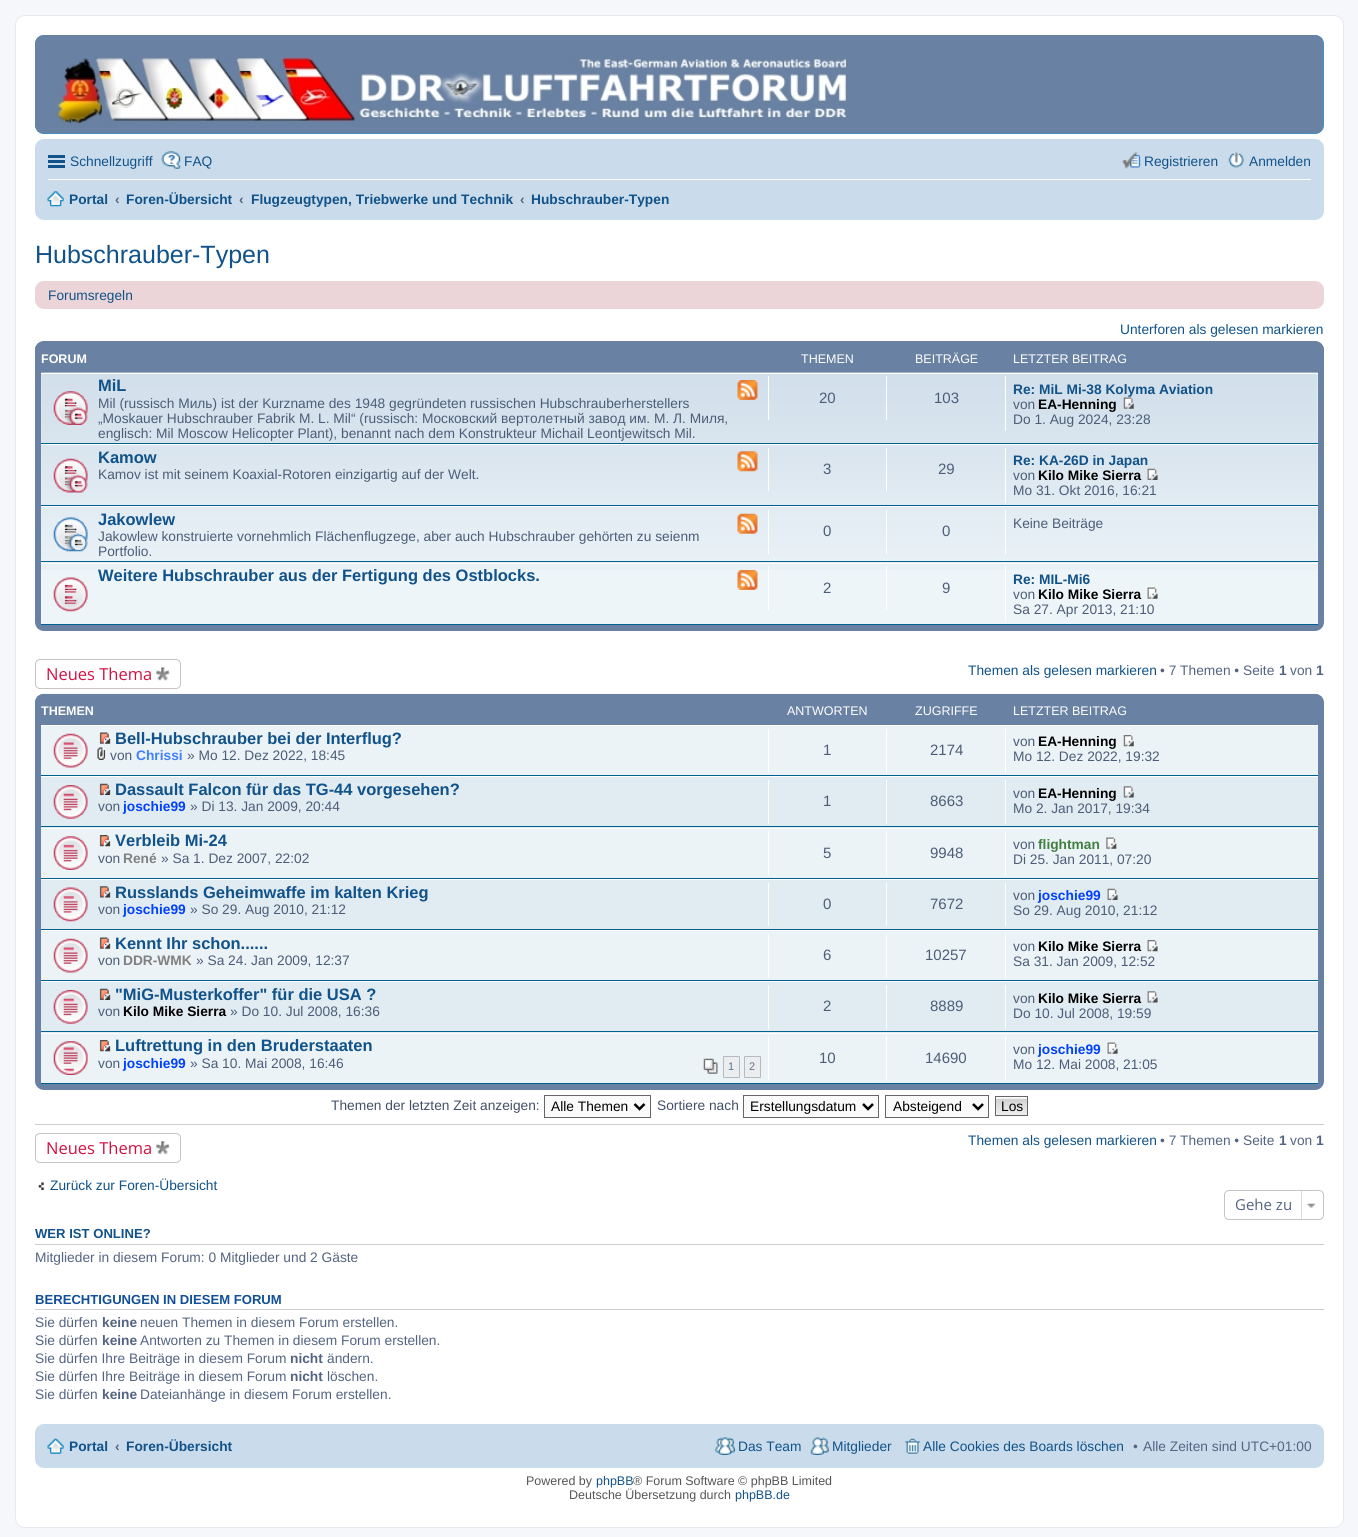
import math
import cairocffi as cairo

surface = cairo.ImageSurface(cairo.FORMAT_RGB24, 1358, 1537)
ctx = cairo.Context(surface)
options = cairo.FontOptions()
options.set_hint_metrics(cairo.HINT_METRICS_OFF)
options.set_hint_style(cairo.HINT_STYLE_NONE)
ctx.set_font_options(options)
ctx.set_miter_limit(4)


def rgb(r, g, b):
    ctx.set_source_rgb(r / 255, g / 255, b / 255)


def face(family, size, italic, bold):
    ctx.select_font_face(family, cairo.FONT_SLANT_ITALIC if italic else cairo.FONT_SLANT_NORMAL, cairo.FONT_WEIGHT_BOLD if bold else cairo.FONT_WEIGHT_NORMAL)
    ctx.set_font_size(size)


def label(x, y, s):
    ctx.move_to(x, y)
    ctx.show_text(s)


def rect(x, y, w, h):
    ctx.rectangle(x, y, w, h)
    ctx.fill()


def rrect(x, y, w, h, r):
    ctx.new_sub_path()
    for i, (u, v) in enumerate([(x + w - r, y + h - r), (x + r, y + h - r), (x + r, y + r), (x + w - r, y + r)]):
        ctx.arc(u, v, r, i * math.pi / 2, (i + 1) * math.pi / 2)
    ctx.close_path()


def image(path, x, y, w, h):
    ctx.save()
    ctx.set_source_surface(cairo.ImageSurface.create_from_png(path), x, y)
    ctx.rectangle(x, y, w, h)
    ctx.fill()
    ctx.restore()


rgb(245, 247, 250)
ctx.paint()
rgb(255, 255, 255)
rrect(15.5, 15.5, 1328, 1512, 9.5)
ctx.fill_preserve()
rgb(230, 233, 237)
ctx.set_line_width(1)
ctx.stroke()
rgb(18, 163, 235)
rrect(35, 35, 1289, 99, 9)
ctx.fill()
image('image0.png', 35, 35, 1289, 99)
image('image1.png', 57, 57, 790, 67)
rgb(202, 220, 235)
rrect(35, 139, 1289, 81, 9)
ctx.fill()
rgb(16, 82, 137)
rect(48, 155, 17, 3)
rect(48, 160, 17, 3)
rect(48, 165, 17, 3)
face('Liberation Sans', 13.75, 0, 0)
label(70, 166, 'Schnellzugriff')
image('image2.png', 161, 151, 20, 18)
label(184, 166, 'FAQ')
image('image3.png', 1122, 152, 19, 17)
label(1144, 166, 'Registrieren')
image('image4.png', 1228, 152, 16, 16)
label(1249, 166, 'Anmelden')
rgb(255, 255, 255)
rect(48, 179, 1263, 1)
image('image5.png', 47, 191, 17, 16)
face('Liberation Sans', 13.75, 0, 1)
rgb(16, 82, 137)
label(69, 204, 'Portal')
rgb(83, 100, 130)
label(115, 204, '‹')
rgb(16, 82, 137)
label(126, 204, 'Foren-Übersicht')
rgb(83, 100, 130)
label(239, 204, '‹')
rgb(16, 82, 137)
label(251, 204, 'Flugzeugtypen, Triebwerke und Technik')
rgb(83, 100, 130)
label(520, 204, '‹')
rgb(16, 82, 137)
label(531, 204, 'Hubschrauber-Typen')
face('Liberation Sans', 25, 0, 0)
label(35, 263, 'Hubschrauber-Typen')
rgb(236, 213, 216)
rrect(35, 281, 1289, 28, 9)
ctx.fill()
face('Liberation Sans', 13.75, 0, 0)
rgb(16, 82, 137)
label(48, 300, 'Forumsregeln')
label(1120, 334, 'Unterforen als gelesen markieren')
rgb(105, 129, 163)
rrect(35, 341, 1289, 290, 9)
ctx.fill()
image('image6.png', 35, 341, 1289, 9)
face('Liberation Sans', 12.5, 0, 1)
rgb(255, 255, 255)
label(41, 363, 'FORUM')
face('Liberation Sans', 12.5, 0, 0)
label(801, 363, 'THEMEN')
label(915, 363, 'BEITRÄGE')
label(1013, 363, 'LETZTER BEITRAG')
rgb(238, 245, 249)
rect(41, 374, 1277, 250)
image('image7.png', 41, 372, 1277, 198)
rgb(255, 255, 255)
rect(41, 373, 1277, 1)
rgb(0, 96, 143)
rect(41, 443, 1277, 1)
image('image8.png', 53, 391, 35, 34)
face('Liberation Sans', 16.5, 0, 1)
rgb(16, 82, 137)
label(98, 391, 'MiL')
image('image9.png', 737, 380, 21, 20)
face('Liberation Sans', 13.75, 0, 0)
rgb(76, 93, 119)
label(98, 408, 'Mil (russisch Миль) ist der Kurzname des 1948 gegründeten russischen Hubschrauberherstellers')
label(98, 423, '„Moskauer Hubschrauber Fabrik M. L. Mil“ (russisch: Московский вертолетный завод им. М. Л. Миля,')
label(98, 438, 'englisch: Mil Moscow Helicopter Plant), benannt nach dem Konstrukteur Michail Leontjewitsch Mil.')
rgb(255, 255, 255)
rect(768, 376, 1, 44)
face('Liberation Sans', 15, 0, 0)
rgb(76, 93, 119)
label(819, 403, '20')
rgb(255, 255, 255)
rect(886, 376, 1, 44)
rgb(76, 93, 119)
label(934, 403, '103')
rgb(255, 255, 255)
rect(1005, 376, 1, 55)
face('Liberation Sans', 13.75, 0, 1)
rgb(16, 82, 137)
label(1013, 394, 'Re: MiL Mi-38 Kolyma Aviation')
face('Liberation Sans', 13.75, 0, 0)
rgb(76, 93, 119)
label(1013, 409, 'von')
face('Liberation Sans', 13.75, 0, 1)
rgb(0, 0, 0)
label(1038, 409, 'EA-Henning')
image('image10.png', 1123, 397, 11, 12)
face('Liberation Sans', 13.75, 0, 0)
rgb(76, 93, 119)
label(1013, 424, 'Do 1. Aug 2024, 23:28')
rgb(255, 255, 255)
rect(41, 444, 1277, 1)
rgb(0, 96, 143)
rect(41, 505, 1277, 1)
image('image11.png', 53, 458, 35, 35)
face('Liberation Sans', 16.5, 0, 1)
rgb(16, 82, 137)
label(98, 463, 'Kamow')
image('image12.png', 737, 451, 21, 21)
face('Liberation Sans', 13.75, 0, 0)
rgb(76, 93, 119)
label(98, 479, 'Kamov ist mit seinem Koaxial-Rotoren einzigartig auf der Welt.')
rgb(255, 255, 255)
rect(768, 448, 1, 43)
face('Liberation Sans', 15, 0, 0)
rgb(76, 93, 119)
label(823, 474, '3')
rgb(255, 255, 255)
rect(886, 448, 1, 43)
rgb(76, 93, 119)
label(938, 474, '29')
rgb(255, 255, 255)
rect(1005, 448, 1, 55)
face('Liberation Sans', 13.75, 0, 1)
rgb(16, 82, 137)
label(1013, 465, 'Re: KA-26D in Japan')
face('Liberation Sans', 13.75, 0, 0)
rgb(76, 93, 119)
label(1013, 480, 'von')
face('Liberation Sans', 13.75, 0, 1)
rgb(0, 0, 0)
label(1038, 480, 'Kilo Mike Sierra')
image('image13.png', 1147, 468, 11, 12)
face('Liberation Sans', 13.75, 0, 0)
rgb(76, 93, 119)
label(1013, 495, 'Mo 31. Okt 2016, 16:21')
rgb(255, 255, 255)
rect(41, 506, 1277, 1)
rgb(0, 96, 143)
rect(41, 561, 1277, 1)
image('image14.png', 53, 517, 35, 35)
face('Liberation Sans', 16.5, 0, 1)
rgb(16, 82, 137)
label(98, 525, 'Jakowlew')
image('image15.png', 737, 513, 21, 21)
face('Liberation Sans', 13.75, 0, 0)
rgb(76, 93, 119)
label(98, 541, 'Jakowlew konstruierte vornehmlich Flächenflugzege, aber auch Hubschrauber gehörten zu seienm')
label(98, 556, 'Portfolio.')
rgb(255, 255, 255)
rect(768, 510, 1, 44)
face('Liberation Sans', 15, 0, 0)
rgb(76, 93, 119)
label(823, 536, '0')
rgb(255, 255, 255)
rect(886, 510, 1, 44)
rgb(76, 93, 119)
label(942, 536, '0')
rgb(255, 255, 255)
rect(1005, 510, 1, 44)
face('Liberation Sans', 13.75, 0, 0)
rgb(76, 93, 119)
label(1013, 528, 'Keine Beiträge')
rgb(255, 255, 255)
rect(41, 563, 1277, 1)
rgb(0, 96, 143)
rect(41, 624, 1277, 1)
image('image16.png', 53, 577, 35, 35)
face('Liberation Sans', 16.5, 0, 1)
rgb(16, 82, 137)
label(98, 581, 'Weitere Hubschrauber aus der Fertigung des Ostblocks.')
image('image17.png', 737, 570, 21, 20)
rgb(255, 255, 255)
rect(768, 566, 1, 44)
face('Liberation Sans', 15, 0, 0)
rgb(76, 93, 119)
label(823, 593, '2')
rgb(255, 255, 255)
rect(886, 566, 1, 44)
rgb(76, 93, 119)
label(942, 593, '9')
rgb(255, 255, 255)
rect(1005, 566, 1, 55)
face('Liberation Sans', 13.75, 0, 1)
rgb(16, 82, 137)
label(1013, 584, 'Re: MIL-Mi6')
face('Liberation Sans', 13.75, 0, 0)
rgb(76, 93, 119)
label(1013, 599, 'von')
face('Liberation Sans', 13.75, 0, 1)
rgb(0, 0, 0)
label(1038, 599, 'Kilo Mike Sierra')
image('image18.png', 1147, 587, 11, 12)
face('Liberation Sans', 13.75, 0, 0)
rgb(76, 93, 119)
label(1013, 614, 'Sa 27. Apr 2013, 21:10')
rrect(35.5, 659.5, 145, 29, 4.5)
rgb(199, 195, 191)
ctx.stroke()
face('Open Sans', 16.5, 0, 0)
rgb(211, 17, 65)
label(46, 680, 'Neues Thema')
image('image19.png', 156, 667, 14, 15)
face('Liberation Sans', 13.75, 0, 0)
rgb(16, 82, 137)
label(968, 675, 'Themen als gelesen markieren')
rgb(83, 100, 130)
label(1160, 675, '• 7 Themen • Seite')
face('Liberation Sans', 13.75, 0, 1)
label(1279, 675, '1')
face('Liberation Sans', 13.75, 0, 0)
label(1290, 675, 'von')
face('Liberation Sans', 13.75, 0, 1)
label(1316, 675, '1')
rgb(105, 129, 163)
rrect(35, 694, 1289, 396, 9)
ctx.fill()
image('image20.png', 35, 693, 1289, 10)
face('Liberation Sans', 12.5, 0, 1)
rgb(255, 255, 255)
label(41, 715, 'THEMEN')
face('Liberation Sans', 12.5, 0, 0)
label(787, 715, 'ANTWORTEN')
label(915, 715, 'ZUGRIFFE')
label(1013, 715, 'LETZTER BEITRAG')
rgb(236, 243, 247)
rect(41, 726, 1277, 49)
rgb(255, 255, 255)
rect(41, 725, 1277, 1)
rgb(0, 96, 143)
rect(41, 775, 1277, 1)
image('image21.png', 53, 733, 35, 35)
image('image22.png', 99, 732, 12, 12)
face('Liberation Sans', 16.5, 0, 1)
rgb(16, 82, 137)
label(115, 744, 'Bell-Hubschrauber bei der Interflug?')
image('image23.png', 97, 747, 10, 13)
face('Liberation Sans', 13.75, 0, 0)
rgb(76, 93, 119)
label(110, 760, 'von')
face('Liberation Sans', 13.75, 0, 1)
rgb(64, 128, 255)
label(136, 760, 'Chrissi')
face('Liberation Sans', 13.75, 0, 0)
rgb(76, 93, 119)
label(187, 760, '» Mo 12. Dez 2022, 18:45')
rgb(255, 255, 255)
rect(768, 729, 1, 44)
face('Liberation Sans', 15, 0, 0)
rgb(76, 93, 119)
label(823, 755, '1')
rgb(255, 255, 255)
rect(886, 729, 1, 44)
rgb(76, 93, 119)
label(930, 755, '2174')
rgb(255, 255, 255)
rect(1005, 729, 1, 44)
face('Liberation Sans', 13.75, 0, 0)
rgb(76, 93, 119)
label(1013, 746, 'von')
face('Liberation Sans', 13.75, 0, 1)
rgb(0, 0, 0)
label(1038, 746, 'EA-Henning')
image('image24.png', 1123, 735, 11, 12)
face('Liberation Sans', 13.75, 0, 0)
rgb(76, 93, 119)
label(1013, 761, 'Mo 12. Dez 2022, 19:32')
rgb(225, 235, 242)
rect(41, 777, 1277, 51)
rgb(255, 255, 255)
rect(41, 776, 1277, 1)
rgb(0, 96, 143)
rect(41, 826, 1277, 1)
image('image25.png', 53, 785, 35, 34)
image('image26.png', 99, 783, 12, 12)
face('Liberation Sans', 16.5, 0, 1)
rgb(16, 82, 137)
label(115, 795, 'Dassault Falcon für das TG-44 vorgesehen?')
face('Liberation Sans', 13.75, 0, 0)
rgb(76, 93, 119)
label(98, 811, 'von')
face('Liberation Sans', 13.75, 0, 1)
rgb(0, 64, 255)
label(123, 811, 'joschie99')
face('Liberation Sans', 13.75, 0, 0)
rgb(76, 93, 119)
label(190, 811, '» Di 13. Jan 2009, 20:44')
rgb(255, 255, 255)
rect(768, 780, 1, 44)
face('Liberation Sans', 15, 0, 0)
rgb(76, 93, 119)
label(823, 806, '1')
rgb(255, 255, 255)
rect(886, 780, 1, 44)
rgb(76, 93, 119)
label(930, 806, '8663')
rgb(255, 255, 255)
rect(1005, 780, 1, 44)
face('Liberation Sans', 13.75, 0, 0)
rgb(76, 93, 119)
label(1013, 798, 'von')
face('Liberation Sans', 13.75, 0, 1)
rgb(0, 0, 0)
label(1038, 798, 'EA-Henning')
image('image27.png', 1123, 786, 11, 12)
face('Liberation Sans', 13.75, 0, 0)
rgb(76, 93, 119)
label(1013, 813, 'Mo 2. Jan 2017, 19:34')
rgb(236, 243, 247)
rect(41, 829, 1277, 49)
rgb(255, 255, 255)
rect(41, 828, 1277, 1)
rgb(0, 96, 143)
rect(41, 878, 1277, 1)
image('image28.png', 53, 836, 35, 34)
image('image29.png', 99, 835, 12, 12)
face('Liberation Sans', 16.5, 0, 1)
rgb(16, 82, 137)
label(115, 846, 'Verbleib Mi-24')
face('Liberation Sans', 13.75, 0, 0)
rgb(76, 93, 119)
label(98, 863, 'von')
face('Liberation Sans', 13.75, 0, 1)
rgb(128, 128, 128)
label(123, 863, 'René')
face('Liberation Sans', 13.75, 0, 0)
rgb(76, 93, 119)
label(161, 863, '» Sa 1. Dez 2007, 22:02')
rgb(255, 255, 255)
rect(768, 831, 1, 44)
face('Liberation Sans', 15, 0, 0)
rgb(76, 93, 119)
label(823, 858, '5')
rgb(255, 255, 255)
rect(886, 831, 1, 44)
rgb(76, 93, 119)
label(930, 858, '9948')
rgb(255, 255, 255)
rect(1005, 831, 1, 44)
face('Liberation Sans', 13.75, 0, 0)
rgb(76, 93, 119)
label(1013, 849, 'von')
face('Liberation Sans', 13.75, 0, 1)
rgb(64, 128, 64)
label(1038, 849, 'flightman')
image('image30.png', 1106, 837, 11, 12)
face('Liberation Sans', 13.75, 0, 0)
rgb(76, 93, 119)
label(1013, 864, 'Di 25. Jan 2011, 07:20')
rgb(225, 235, 242)
rect(41, 880, 1277, 49)
rgb(255, 255, 255)
rect(41, 879, 1277, 1)
rgb(0, 96, 143)
rect(41, 929, 1277, 1)
image('image31.png', 53, 887, 35, 35)
image('image32.png', 99, 886, 12, 12)
face('Liberation Sans', 16.5, 0, 1)
rgb(16, 82, 137)
label(115, 898, 'Russlands Geheimwaffe im kalten Krieg')
face('Liberation Sans', 13.75, 0, 0)
rgb(76, 93, 119)
label(98, 914, 'von')
face('Liberation Sans', 13.75, 0, 1)
rgb(0, 64, 255)
label(123, 914, 'joschie99')
face('Liberation Sans', 13.75, 0, 0)
rgb(76, 93, 119)
label(190, 914, '» So 29. Aug 2010, 21:12')
rgb(255, 255, 255)
rect(768, 883, 1, 43)
face('Liberation Sans', 15, 0, 0)
rgb(76, 93, 119)
label(823, 909, '0')
rgb(255, 255, 255)
rect(886, 883, 1, 43)
rgb(76, 93, 119)
label(930, 909, '7672')
rgb(255, 255, 255)
rect(1005, 883, 1, 43)
face('Liberation Sans', 13.75, 0, 0)
rgb(76, 93, 119)
label(1013, 900, 'von')
face('Liberation Sans', 13.75, 0, 1)
rgb(0, 64, 255)
label(1038, 900, 'joschie99')
image('image33.png', 1107, 888, 11, 12)
face('Liberation Sans', 13.75, 0, 0)
rgb(76, 93, 119)
label(1013, 915, 'So 29. Aug 2010, 21:12')
rgb(236, 243, 247)
rect(41, 931, 1277, 49)
rgb(255, 255, 255)
rect(41, 930, 1277, 1)
rgb(0, 96, 143)
rect(41, 980, 1277, 1)
image('image21.png', 53, 938, 35, 35)
image('image22.png', 99, 937, 12, 12)
face('Liberation Sans', 16.5, 0, 1)
rgb(16, 82, 137)
label(115, 949, 'Kennt Ihr schon......')
face('Liberation Sans', 13.75, 0, 0)
rgb(76, 93, 119)
label(98, 965, 'von')
face('Liberation Sans', 13.75, 0, 1)
rgb(128, 128, 128)
label(123, 965, 'DDR-WMK')
face('Liberation Sans', 13.75, 0, 0)
rgb(76, 93, 119)
label(196, 965, '» Sa 24. Jan 2009, 12:37')
rgb(255, 255, 255)
rect(768, 934, 1, 44)
face('Liberation Sans', 15, 0, 0)
rgb(76, 93, 119)
label(823, 960, '6')
rgb(255, 255, 255)
rect(886, 934, 1, 44)
rgb(76, 93, 119)
label(925, 960, '10257')
rgb(255, 255, 255)
rect(1005, 934, 1, 44)
face('Liberation Sans', 13.75, 0, 0)
rgb(76, 93, 119)
label(1013, 951, 'von')
face('Liberation Sans', 13.75, 0, 1)
rgb(0, 0, 0)
label(1038, 951, 'Kilo Mike Sierra')
image('image34.png', 1147, 940, 11, 12)
face('Liberation Sans', 13.75, 0, 0)
rgb(76, 93, 119)
label(1013, 966, 'Sa 31. Jan 2009, 12:52')
rgb(225, 235, 242)
rect(41, 982, 1277, 51)
rgb(255, 255, 255)
rect(41, 981, 1277, 1)
rgb(0, 96, 143)
rect(41, 1031, 1277, 1)
image('image25.png', 53, 990, 35, 34)
image('image26.png', 99, 988, 12, 12)
face('Liberation Sans', 16.5, 0, 1)
rgb(16, 82, 137)
label(115, 1000, '"MiG-Musterkoffer" für die USA ?')
face('Liberation Sans', 13.75, 0, 0)
rgb(76, 93, 119)
label(98, 1016, 'von')
face('Liberation Sans', 13.75, 0, 1)
rgb(0, 0, 0)
label(123, 1016, 'Kilo Mike Sierra')
face('Liberation Sans', 13.75, 0, 0)
rgb(76, 93, 119)
label(230, 1016, '» Do 10. Jul 2008, 16:36')
rgb(255, 255, 255)
rect(768, 985, 1, 44)
face('Liberation Sans', 15, 0, 0)
rgb(76, 93, 119)
label(823, 1011, '2')
rgb(255, 255, 255)
rect(886, 985, 1, 44)
rgb(76, 93, 119)
label(930, 1011, '8889')
rgb(255, 255, 255)
rect(1005, 985, 1, 44)
face('Liberation Sans', 13.75, 0, 0)
rgb(76, 93, 119)
label(1013, 1003, 'von')
face('Liberation Sans', 13.75, 0, 1)
rgb(0, 0, 0)
label(1038, 1003, 'Kilo Mike Sierra')
image('image35.png', 1147, 991, 11, 12)
face('Liberation Sans', 13.75, 0, 0)
rgb(76, 93, 119)
label(1013, 1018, 'Do 10. Jul 2008, 19:59')
rgb(236, 243, 247)
rect(41, 1034, 1277, 49)
rgb(255, 255, 255)
rect(41, 1033, 1277, 1)
rgb(0, 96, 143)
rect(41, 1083, 1277, 1)
image('image36.png', 53, 1041, 35, 34)
image('image29.png', 99, 1040, 12, 12)
face('Liberation Sans', 16.5, 0, 1)
rgb(16, 82, 137)
label(115, 1051, 'Luftrettung in den Bruderstaaten')
face('Liberation Sans', 13.75, 0, 0)
rgb(76, 93, 119)
label(98, 1068, 'von')
face('Liberation Sans', 13.75, 0, 1)
rgb(0, 64, 255)
label(123, 1068, 'joschie99')
face('Liberation Sans', 13.75, 0, 0)
rgb(76, 93, 119)
label(190, 1068, '» Sa 10. Mai 2008, 16:46')
image('image37.png', 703, 1058, 15, 16)
rgb(236, 237, 238)
rrect(723.5, 1056.5, 16, 21, 0.5)
ctx.fill_preserve()
rgb(180, 186, 192)
ctx.stroke()
face('Liberation Sans', 11, 0, 0)
rgb(92, 117, 140)
label(728, 1070, '1')
rgb(236, 237, 238)
rrect(744.5, 1056.5, 16, 21, 0.5)
ctx.fill_preserve()
rgb(180, 186, 192)
ctx.stroke()
rgb(92, 117, 140)
label(749, 1070, '2')
rgb(255, 255, 255)
rect(768, 1036, 1, 44)
face('Liberation Sans', 15, 0, 0)
rgb(76, 93, 119)
label(819, 1063, '10')
rgb(255, 255, 255)
rect(886, 1036, 1, 44)
rgb(76, 93, 119)
label(925, 1063, '14690')
rgb(255, 255, 255)
rect(1005, 1036, 1, 44)
face('Liberation Sans', 13.75, 0, 0)
rgb(76, 93, 119)
label(1013, 1054, 'von')
face('Liberation Sans', 13.75, 0, 1)
rgb(0, 64, 255)
label(1038, 1054, 'joschie99')
image('image38.png', 1107, 1042, 11, 12)
face('Liberation Sans', 13.75, 0, 0)
rgb(76, 93, 119)
label(1013, 1069, 'Mo 12. Mai 2008, 21:05')
rgb(66, 80, 103)
label(331, 1110, 'Themen der letzten Zeit anzeigen:')
rgb(250, 250, 250)
ctx.rectangle(544.5, 1095.5, 106, 22)
ctx.fill_preserve()
rgb(102, 102, 102)
ctx.stroke()
ctx.new_path()
ctx.move_to(634.5, 1104)
ctx.line_to(639.5, 1109)
ctx.line_to(644.5, 1104)
rgb(0, 0, 0)
ctx.set_line_width(2.5)
ctx.stroke()
label(551, 1111, 'Alle Themen')
rgb(66, 80, 103)
label(657, 1110, 'Sortiere nach')
rgb(250, 250, 250)
ctx.rectangle(743.5, 1095.5, 135, 22)
ctx.fill_preserve()
rgb(102, 102, 102)
ctx.set_line_width(1)
ctx.stroke()
ctx.new_path()
ctx.move_to(863, 1104)
ctx.line_to(868, 1109)
ctx.line_to(873, 1104)
rgb(0, 0, 0)
ctx.set_line_width(2.5)
ctx.stroke()
label(750, 1111, 'Erstellungsdatum')
rgb(250, 250, 250)
ctx.rectangle(885.5, 1095.5, 103, 22)
ctx.fill_preserve()
rgb(102, 102, 102)
ctx.set_line_width(1)
ctx.stroke()
ctx.new_path()
ctx.move_to(973, 1104)
ctx.line_to(978, 1109)
ctx.line_to(983, 1104)
rgb(0, 0, 0)
ctx.set_line_width(2.5)
ctx.stroke()
label(893, 1111, 'Absteigend')
rgb(250, 250, 250)
rect(996, 1097, 31, 1)
image('image39.png', 995, 1098, 33, 19)
ctx.rectangle(995.5, 1096.5, 32, 19)
rgb(102, 102, 102)
ctx.set_line_width(1)
ctx.stroke()
rgb(0, 0, 0)
label(1001, 1111, 'Los')
rgb(204, 204, 204)
rect(35, 1124, 1289, 1)
rrect(35.5, 1133.5, 145, 29, 4.5)
rgb(199, 195, 191)
ctx.stroke()
face('Open Sans', 16.5, 0, 0)
rgb(211, 17, 65)
label(46, 1154, 'Neues Thema')
image('image40.png', 156, 1141, 14, 14)
face('Liberation Sans', 13.75, 0, 0)
rgb(16, 82, 137)
label(968, 1145, 'Themen als gelesen markieren')
rgb(83, 100, 130)
label(1160, 1145, '• 7 Themen • Seite')
face('Liberation Sans', 13.75, 0, 1)
label(1279, 1145, '1')
face('Liberation Sans', 13.75, 0, 0)
label(1290, 1145, 'von')
face('Liberation Sans', 13.75, 0, 1)
label(1316, 1145, '1')
image('image41.png', 38, 1182, 6, 8)
face('Liberation Sans', 13.75, 0, 0)
rgb(16, 82, 137)
label(50, 1190, 'Zurück zur Foren-Übersicht')
rrect(1224.5, 1190.5, 99, 29, 4.5)
rgb(199, 195, 191)
ctx.stroke()
face('Open Sans', 15, 0, 0)
rgb(83, 100, 130)
label(1235, 1210, 'Gehe zu')
image('image42.png', 1307, 1203, 9, 6)
rgb(218, 218, 218)
rect(1301, 1191, 1, 28)
rgb(204, 204, 204)
rect(35, 1244, 1289, 1)
face('Liberation Sans', 13.1, 0, 1)
rgb(16, 82, 137)
label(35, 1238, 'WER IST ONLINE?')
face('Liberation Sans', 13.75, 0, 0)
rgb(83, 100, 130)
label(35, 1262, 'Mitglieder in diesem Forum: 0 Mitglieder und 2 Gäste')
rgb(204, 204, 204)
rect(35, 1309, 1289, 1)
face('Liberation Sans', 13.1, 0, 1)
rgb(17, 80, 152)
label(35, 1304, 'BERECHTIGUNGEN IN DIESEM FORUM')
face('Liberation Sans', 13.75, 0, 0)
rgb(83, 100, 130)
label(35, 1327, 'Sie dürfen')
face('Liberation Sans', 13.75, 0, 1)
label(102, 1327, 'keine')
face('Liberation Sans', 13.75, 0, 0)
label(140, 1327, 'neuen Themen in diesem Forum erstellen.')
label(35, 1345, 'Sie dürfen')
face('Liberation Sans', 13.75, 0, 1)
label(102, 1345, 'keine')
face('Liberation Sans', 13.75, 0, 0)
label(140, 1345, 'Antworten zu Themen in diesem Forum erstellen.')
label(35, 1363, 'Sie dürfen Ihre Beiträge in diesem Forum')
face('Liberation Sans', 13.75, 0, 1)
label(290, 1363, 'nicht')
face('Liberation Sans', 13.75, 0, 0)
label(327, 1363, 'ändern.')
label(35, 1381, 'Sie dürfen Ihre Beiträge in diesem Forum')
face('Liberation Sans', 13.75, 0, 1)
label(290, 1381, 'nicht')
face('Liberation Sans', 13.75, 0, 0)
label(327, 1381, 'löschen.')
label(35, 1399, 'Sie dürfen')
face('Liberation Sans', 13.75, 0, 1)
label(102, 1399, 'keine')
face('Liberation Sans', 13.75, 0, 0)
label(140, 1399, 'Dateianhänge in diesem Forum erstellen.')
rgb(202, 220, 235)
rrect(35, 1424, 1289, 44, 9)
ctx.fill()
image('image43.png', 47, 1438, 17, 16)
face('Liberation Sans', 13.75, 0, 1)
rgb(16, 82, 137)
label(69, 1451, 'Portal')
rgb(83, 100, 130)
label(115, 1451, '‹')
rgb(16, 82, 137)
label(126, 1451, 'Foren-Übersicht')
image('image44.png', 715, 1437, 20, 18)
face('Liberation Sans', 13.75, 0, 0)
label(738, 1451, 'Das Team')
image('image45.png', 810, 1437, 20, 18)
label(832, 1451, 'Mitglieder')
image('image46.png', 905, 1438, 16, 16)
label(923, 1451, 'Alle Cookies des Boards löschen')
rgb(83, 100, 130)
label(1133, 1451, '•')
label(1143, 1451, 'Alle Zeiten sind UTC+01:00')
face('Liberation Sans', 12.5, 0, 0)
rgb(85, 85, 85)
label(526, 1485, 'Powered by')
rgb(16, 82, 137)
label(596, 1485, 'phpBB')
rgb(85, 85, 85)
label(633, 1485, '® Forum Software © phpBB Limited')
label(569, 1499, 'Deutsche Übersetzung durch')
rgb(16, 82, 137)
label(735, 1499, 'phpBB.de')
surface.write_to_png('render.png')
